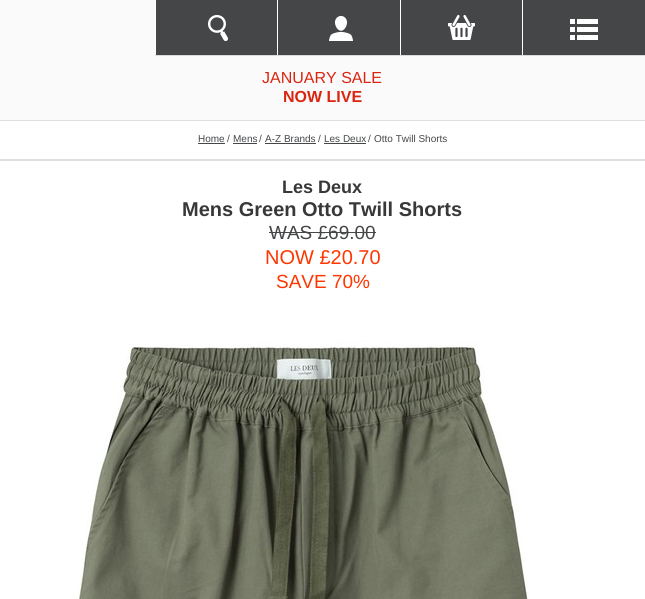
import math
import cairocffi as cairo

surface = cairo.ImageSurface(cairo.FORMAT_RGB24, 645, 599)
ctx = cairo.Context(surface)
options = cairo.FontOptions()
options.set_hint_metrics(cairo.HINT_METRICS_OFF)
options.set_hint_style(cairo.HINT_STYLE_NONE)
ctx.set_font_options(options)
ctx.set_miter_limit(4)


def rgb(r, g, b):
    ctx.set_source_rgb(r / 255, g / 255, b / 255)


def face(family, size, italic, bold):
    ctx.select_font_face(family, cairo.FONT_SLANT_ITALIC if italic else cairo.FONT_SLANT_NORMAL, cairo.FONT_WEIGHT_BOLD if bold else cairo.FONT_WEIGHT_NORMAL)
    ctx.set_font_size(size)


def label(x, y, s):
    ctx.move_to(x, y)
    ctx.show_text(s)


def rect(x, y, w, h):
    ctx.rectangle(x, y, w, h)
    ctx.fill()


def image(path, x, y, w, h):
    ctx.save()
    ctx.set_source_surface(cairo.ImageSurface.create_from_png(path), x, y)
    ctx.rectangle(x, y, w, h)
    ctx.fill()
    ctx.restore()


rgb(255, 255, 255)
ctx.paint()
rgb(250, 250, 250)
rect(0, 0, 155, 56)
rgb(68, 70, 72)
rect(156, 0, 121, 55)
rgb(216, 220, 220)
rect(155, 55, 490, 1)
image('image0.png', 208, 15, 20, 26)
rgb(68, 70, 72)
rect(278, 0, 122, 55)
image('image1.png', 329, 16, 24, 25)
rect(401, 0, 121, 55)
image('image2.png', 448, 15, 27, 25)
rect(523, 0, 122, 55)
image('image3.png', 570, 19, 28, 21)
rgb(250, 250, 250)
rect(0, 56, 645, 64)
face('Liberation Sans', 16, 0, 0)
rgb(219, 37, 16)
label(262, 83, 'JANUARY SALE')
face('Liberation Sans', 16, 0, 1)
label(283, 102, 'NOW LIVE')
rgb(222, 222, 222)
rect(0, 120, 645, 1)
rect(0, 159, 645, 2)
face('Liberation Sans', 10, 0, 0)
rgb(68, 70, 72)
label(198, 142, 'Home')
rect(198, 143, 27, 1)
label(227, 142, '/')
label(233, 142, 'Mens')
rect(233, 143, 24, 1)
label(259, 142, '/')
label(265, 142, 'A-Z Brands')
rect(265, 143, 51, 1)
label(318, 142, '/')
label(324, 142, 'Les Deux')
rect(324, 143, 42, 1)
label(368, 142, '/')
label(374, 142, 'Otto Twill Shorts')
face('Liberation Sans', 18, 0, 1)
rgb(56, 56, 56)
label(282, 193, 'Les Deux')
face('Liberation Sans', 20, 0, 1)
label(182, 216, 'Mens Green Otto Twill Shorts')
face('Liberation Sans', 19, 0, 0)
rgb(68, 70, 72)
label(269, 239, 'WAS £69.00')
rect(269, 232, 107, 1)
face('Liberation Sans', 20, 0, 0)
rgb(255, 54, 0)
label(265, 264, 'NOW £20.70')
face('Liberation Sans', 19, 0, 0)
label(276, 288, 'SAVE 70%')
image('image4.png', 77, 340, 453, 259)
surface.write_to_png('render.png')
